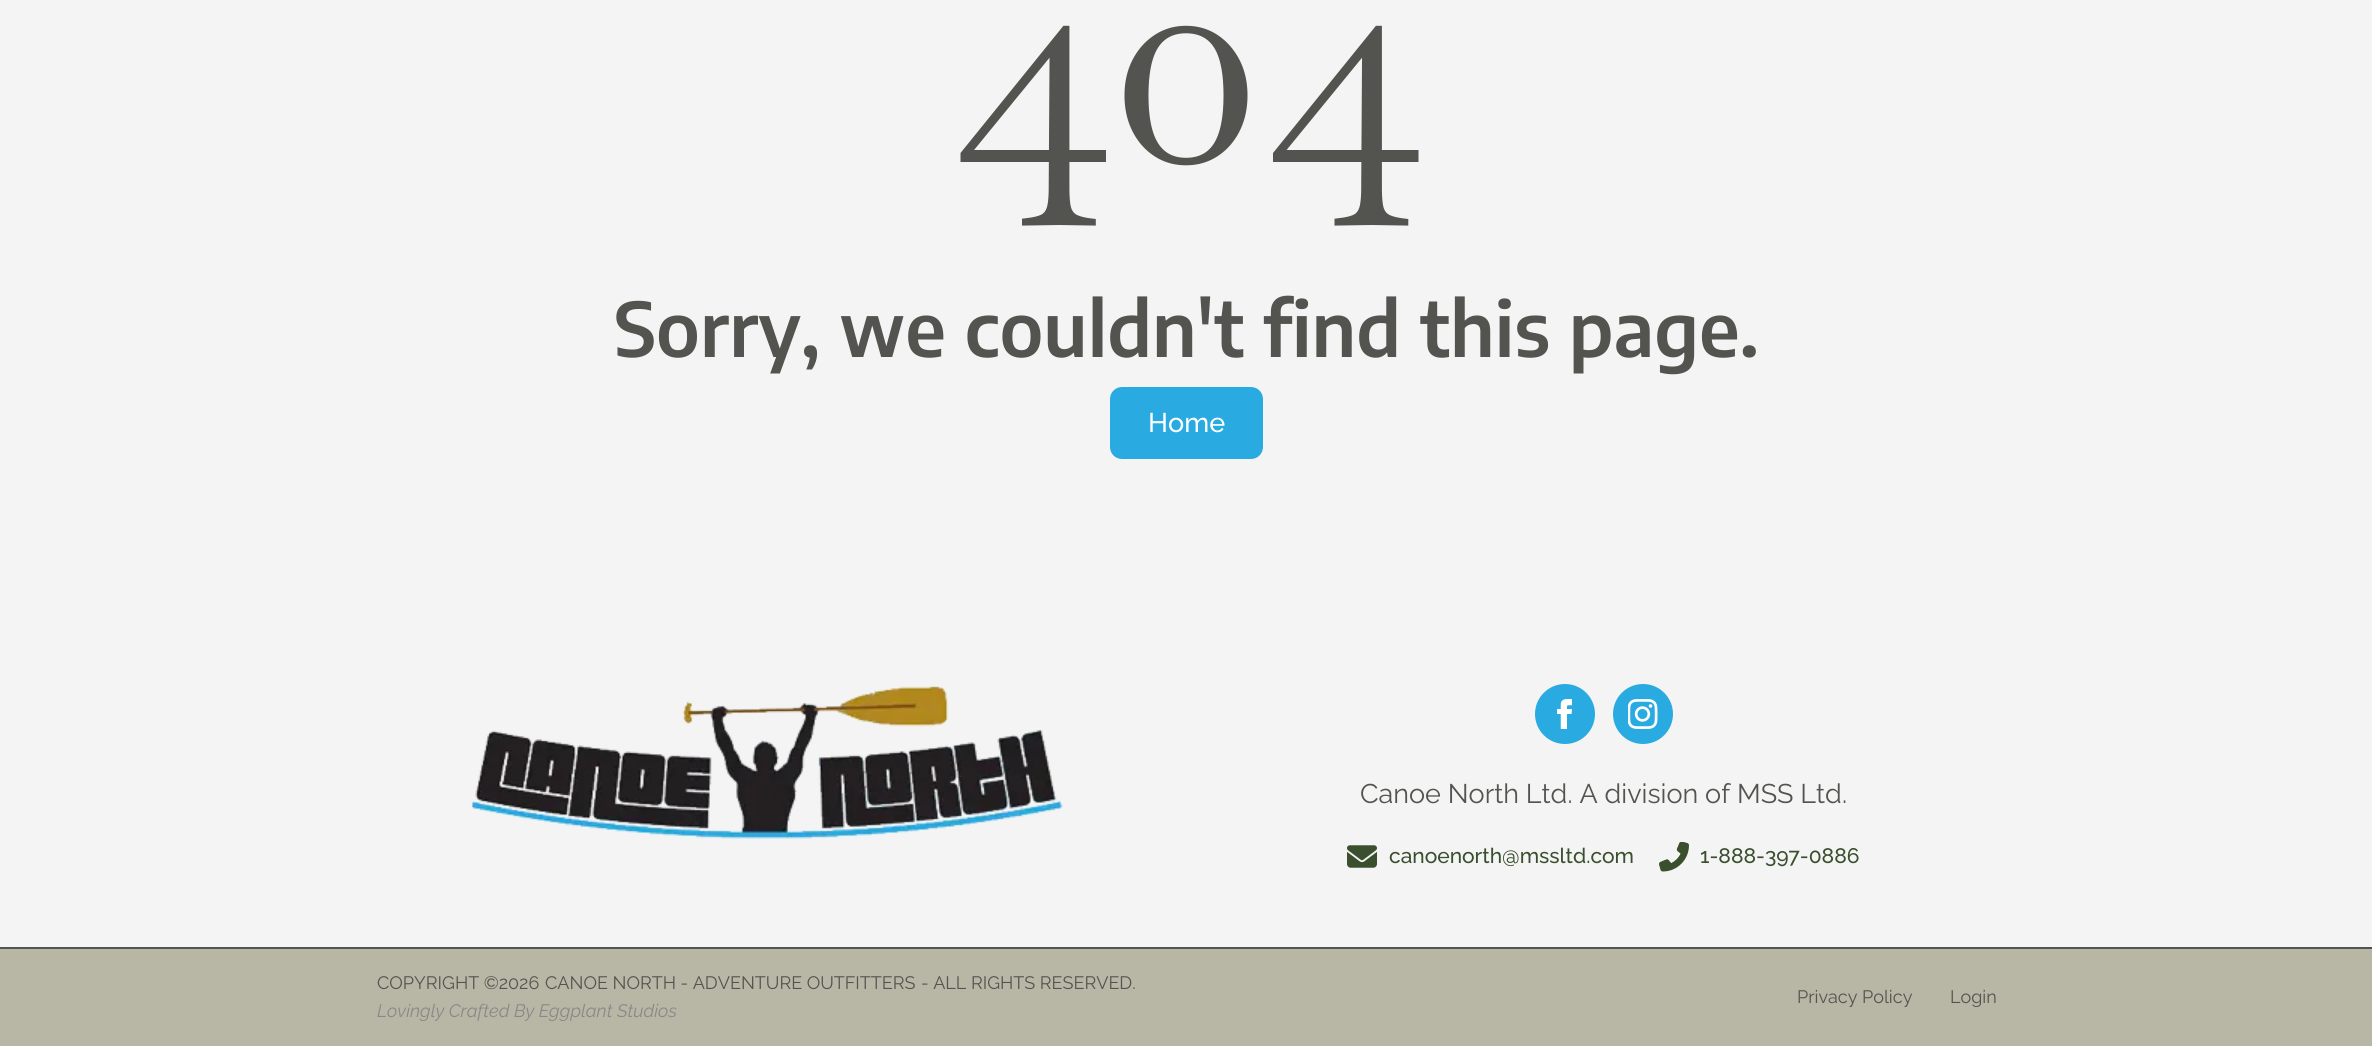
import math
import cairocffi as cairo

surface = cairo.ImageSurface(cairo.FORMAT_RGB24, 2372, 1046)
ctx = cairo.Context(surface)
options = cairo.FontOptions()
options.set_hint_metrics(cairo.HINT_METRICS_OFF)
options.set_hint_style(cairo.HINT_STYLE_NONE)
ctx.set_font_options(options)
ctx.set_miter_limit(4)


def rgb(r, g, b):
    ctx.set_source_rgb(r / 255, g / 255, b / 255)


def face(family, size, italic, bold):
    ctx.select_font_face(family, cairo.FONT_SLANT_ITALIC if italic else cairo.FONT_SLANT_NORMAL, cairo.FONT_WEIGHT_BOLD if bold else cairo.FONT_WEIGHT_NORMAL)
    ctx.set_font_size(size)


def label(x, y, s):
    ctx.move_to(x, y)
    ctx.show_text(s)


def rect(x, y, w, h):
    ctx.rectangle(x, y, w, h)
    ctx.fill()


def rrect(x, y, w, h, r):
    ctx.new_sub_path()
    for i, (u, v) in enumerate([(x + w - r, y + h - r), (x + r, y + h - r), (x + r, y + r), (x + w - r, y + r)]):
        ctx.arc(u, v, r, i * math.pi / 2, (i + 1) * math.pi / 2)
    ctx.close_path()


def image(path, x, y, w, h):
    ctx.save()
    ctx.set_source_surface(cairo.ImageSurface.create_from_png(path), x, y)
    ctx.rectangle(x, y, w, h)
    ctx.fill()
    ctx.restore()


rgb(244, 244, 244)
ctx.paint()
face('Baskervville', 300, 0, 0)
rgb(83, 84, 79)
label(947, 162, '404')
face('Encode Sans Condensed SemiBold', 75, 0, 0)
label(614, 357, 'Sorry, we couldn\'t find this page.')
rgb(41, 170, 225)
rrect(1110, 387, 153, 72, 12)
ctx.fill()
face('Raleway Medium', 27, 0, 0)
rgb(255, 255, 255)
label(1148, 432, 'Home')
image('image0.png', 471, 685, 592, 154)
rgb(41, 170, 225)
ctx.arc(1565, 714, 30, 0, 2 * math.pi)
ctx.fill()
image('image1.png', 1557, 699, 15, 30)
ctx.arc(1643, 714, 30, 0, 2 * math.pi)
ctx.fill()
image('image2.png', 1628, 699, 30, 30)
face('Raleway', 27, 0, 0)
rgb(83, 84, 79)
label(1360, 803, 'Canoe North Ltd. A division of MSS Ltd.')
image('image3.png', 1347, 845, 30, 23)
face('Raleway Medium', 21, 0, 0)
rgb(58, 79, 46)
label(1389, 863, 'canoenorth@mssltd.com')
image('image4.png', 1659, 842, 30, 30)
label(1700, 863, '1-888-397-0886')
rgb(184, 183, 165)
rect(0, 949, 2372, 97)
rgb(83, 84, 79)
rect(0, 947, 2372, 2)
face('Raleway', 18, 0, 0)
label(377, 989, 'COPYRIGHT ©2026')
label(545, 989, 'CANOE NORTH - ADVENTURE OUTFITTERS')
label(921, 989, '- ALL RIGHTS RESERVED.')
face('Raleway', 18, 1, 0)
rgb(136, 136, 136)
label(377, 1017, 'Lovingly Crafted By Eggplant Studios')
face('Raleway', 18, 0, 0)
rgb(83, 84, 79)
label(1797, 1003, 'Privacy Policy')
label(1950, 1003, 'Login')
surface.write_to_png('render.png')
